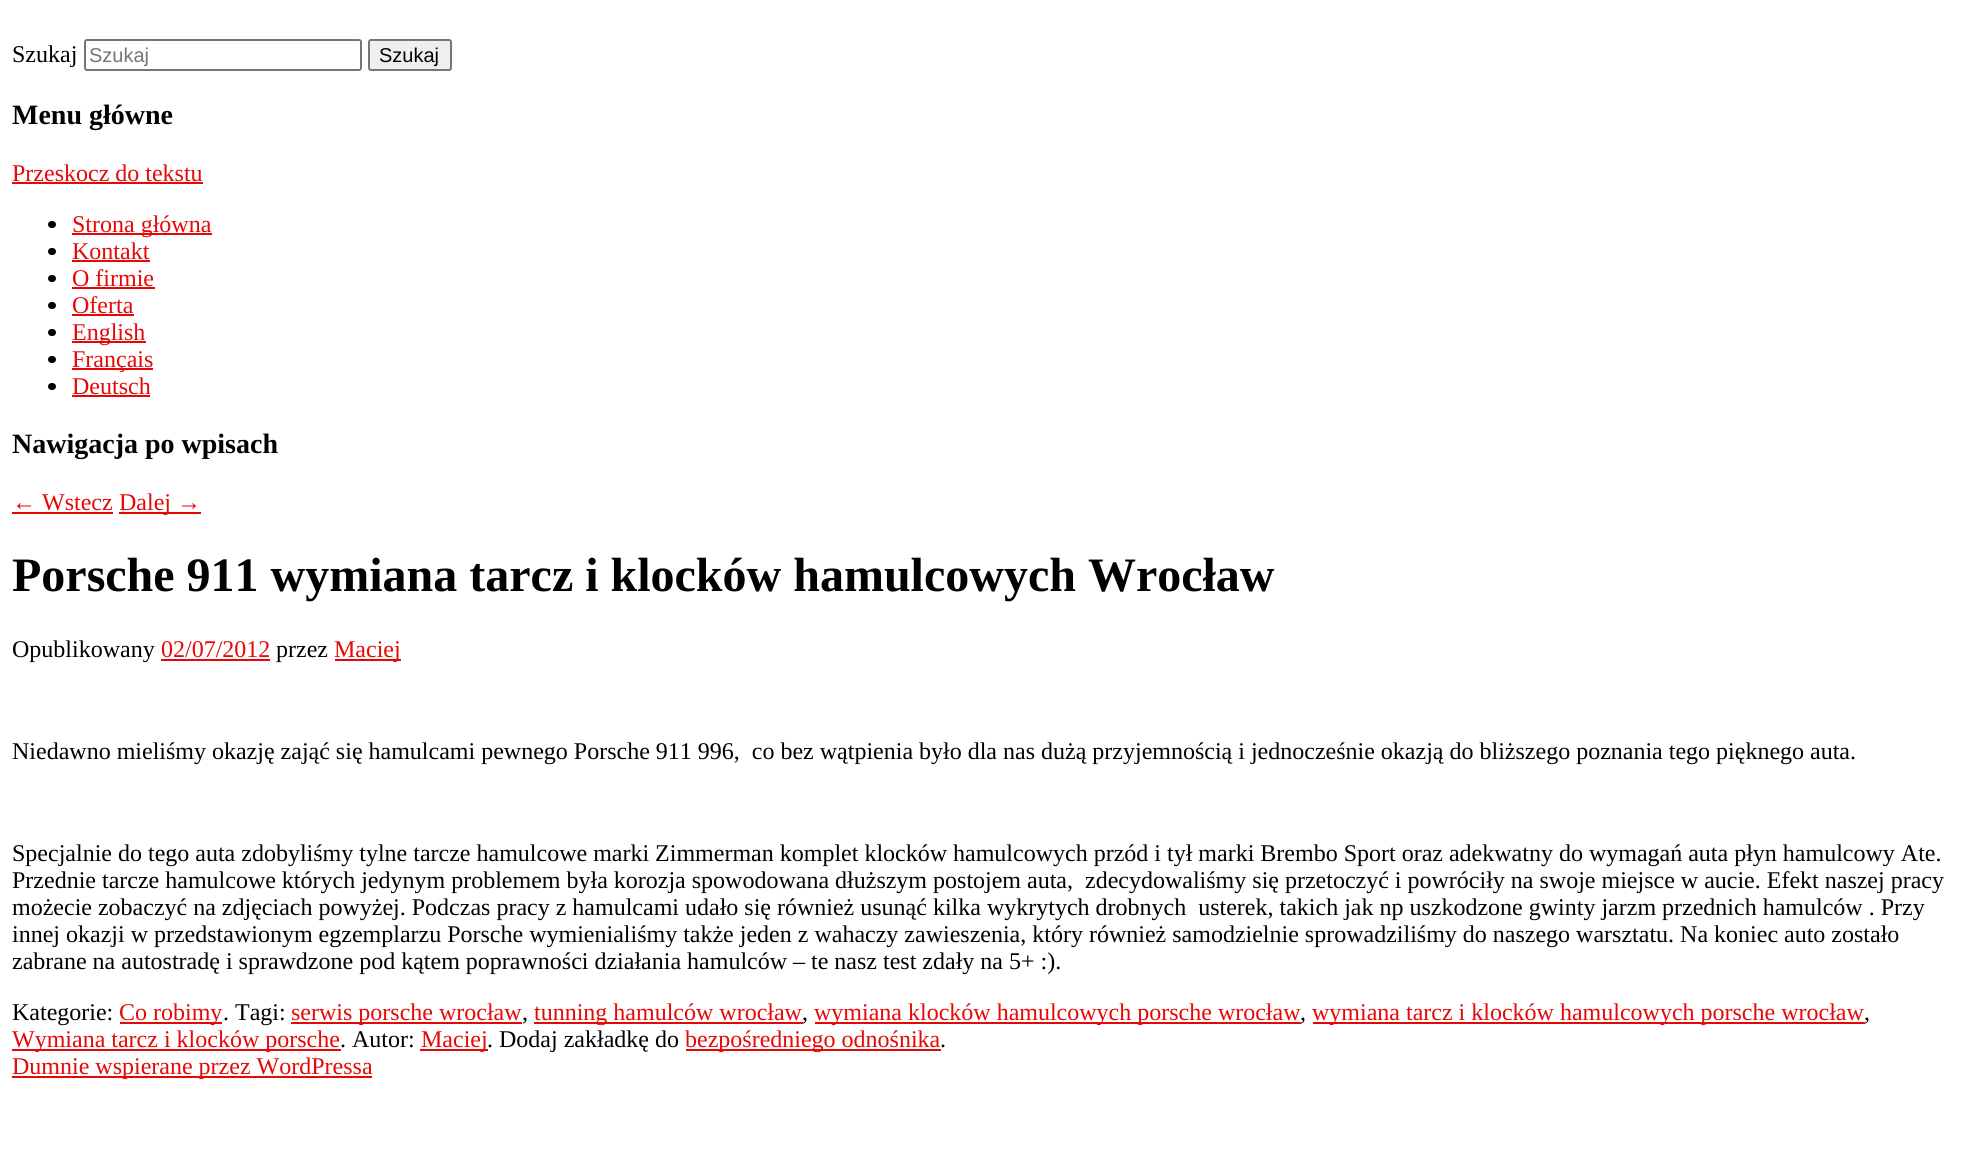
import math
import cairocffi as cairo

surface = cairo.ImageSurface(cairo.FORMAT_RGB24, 1964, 1154)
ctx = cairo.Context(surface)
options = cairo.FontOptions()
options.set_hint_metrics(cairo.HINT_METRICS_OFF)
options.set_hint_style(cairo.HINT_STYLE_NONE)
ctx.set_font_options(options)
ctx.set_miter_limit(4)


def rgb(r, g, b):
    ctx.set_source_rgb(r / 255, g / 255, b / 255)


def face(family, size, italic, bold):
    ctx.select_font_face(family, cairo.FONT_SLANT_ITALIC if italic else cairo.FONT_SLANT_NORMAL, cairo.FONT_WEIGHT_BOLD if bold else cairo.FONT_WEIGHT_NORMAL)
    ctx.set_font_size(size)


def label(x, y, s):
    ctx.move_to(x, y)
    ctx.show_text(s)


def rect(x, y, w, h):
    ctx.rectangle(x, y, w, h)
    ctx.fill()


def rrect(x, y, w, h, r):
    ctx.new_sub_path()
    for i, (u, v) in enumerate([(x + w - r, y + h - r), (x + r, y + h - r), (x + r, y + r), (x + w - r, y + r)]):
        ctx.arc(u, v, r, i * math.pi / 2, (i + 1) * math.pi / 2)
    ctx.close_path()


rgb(255, 255, 255)
ctx.paint()
face('Liberation Serif', 24, 0, 0)
rgb(0, 0, 0)
label(12, 62, 'Szukaj')
rrect(85, 40, 276, 30, 2)
rgb(118, 118, 118)
ctx.stroke()
face('Liberation Sans', 20, 0, 0)
rgb(117, 117, 117)
label(89, 62, 'Szukaj')
rgb(239, 239, 239)
rrect(369, 40, 82, 30, 2)
ctx.fill_preserve()
rgb(118, 118, 118)
ctx.stroke()
rgb(0, 0, 0)
label(379, 62, 'Szukaj')
face('Liberation Serif', 28, 0, 1)
label(12, 124, 'Menu główne')
face('Liberation Serif', 24, 0, 0)
rgb(229, 8, 6)
label(12, 181, 'Przeskocz do tekstu')
rect(12, 182, 191, 2)
rgb(0, 0, 0)
rrect(48, 221, 8, 7, 3.5)
ctx.fill()
rgb(229, 8, 6)
rect(72, 233, 140, 2)
label(72, 232, 'Strona główna')
rgb(0, 0, 0)
rrect(48, 248, 8, 7, 3.5)
ctx.fill()
rgb(229, 8, 6)
label(72, 259, 'Kontakt')
rect(72, 260, 78, 2)
rgb(0, 0, 0)
rrect(48, 275, 8, 7, 3.5)
ctx.fill()
rgb(229, 8, 6)
label(72, 286, 'O firmie')
rect(72, 287, 83, 2)
rgb(0, 0, 0)
rrect(48, 302, 8, 7, 3.5)
ctx.fill()
rgb(229, 8, 6)
label(72, 313, 'Oferta')
rect(72, 314, 62, 2)
rgb(0, 0, 0)
rrect(48, 329, 8, 7, 3.5)
ctx.fill()
rgb(229, 8, 6)
rect(72, 341, 74, 2)
label(72, 340, 'English')
rgb(0, 0, 0)
rrect(48, 356, 8, 7, 3.5)
ctx.fill()
rgb(229, 8, 6)
rect(72, 368, 81, 2)
label(72, 367, 'Français')
rgb(0, 0, 0)
rrect(48, 383, 8, 7, 3.5)
ctx.fill()
rgb(229, 8, 6)
label(72, 394, 'Deutsch')
rect(72, 395, 78, 2)
face('Liberation Serif', 28, 0, 1)
rgb(0, 0, 0)
label(12, 453, 'Nawigacja po wpisach')
face('Liberation Serif', 24, 0, 0)
rgb(229, 8, 6)
label(12, 510, '← Wstecz')
rect(12, 512, 101, 2)
rect(119, 512, 82, 2)
label(119, 510, 'Dalej →')
face('Liberation Serif', 48, 0, 1)
rgb(0, 0, 0)
label(12, 591, 'Porsche 911 wymiana tarcz i klocków hamulcowych Wrocław')
face('Liberation Serif', 24, 0, 0)
label(12, 657, 'Opublikowany')
rgb(229, 8, 6)
label(161, 657, '02/07/2012')
rect(161, 659, 109, 2)
rgb(0, 0, 0)
label(276, 657, 'przez')
rgb(229, 8, 6)
rect(335, 659, 66, 2)
label(334, 657, 'Maciej')
rgb(0, 0, 0)
label(12, 759, 'Niedawno mieliśmy okazję zająć się hamulcami pewnego Porsche 911 996,  co bez wątpienia było dla nas dużą przyjemnością i jednocześnie okazją do bliższego poznania tego pięknego auta.')
label(12, 861, 'Specjalnie do tego auta zdobyliśmy tylne tarcze hamulcowe marki Zimmerman komplet klocków hamulcowych przód i tył marki Brembo Sport oraz adekwatny do wymagań auta płyn hamulcowy Ate.')
label(12, 888, 'Przednie tarcze hamulcowe których jedynym problemem była korozja spowodowana dłuższym postojem auta,  zdecydowaliśmy się przetoczyć i powróciły na swoje miejsce w aucie. Efekt naszej pracy')
label(12, 915, 'możecie zobaczyć na zdjęciach powyżej. Podczas pracy z hamulcami udało się również usunąć kilka wykrytych drobnych  usterek, takich jak np uszkodzone gwinty jarzm przednich hamulców . Przy')
label(12, 942, 'innej okazji w przedstawionym egzemplarzu Porsche wymienialiśmy także jeden z wahaczy zawieszenia, który również samodzielnie sprowadziliśmy do naszego warsztatu. Na koniec auto zostało')
label(12, 969, 'zabrane na autostradę i sprawdzone pod kątem poprawności działania hamulców – te nasz test zdały na 5+ :).')
label(12, 1020, 'Kategorie:')
rgb(229, 8, 6)
rect(120, 1022, 102, 2)
label(119, 1020, 'Co robimy')
rgb(0, 0, 0)
label(223, 1020, '. Tagi:')
rgb(229, 8, 6)
rect(291, 1022, 231, 2)
label(291, 1020, 'serwis porsche wrocław')
rgb(0, 0, 0)
label(522, 1020, ',')
rgb(229, 8, 6)
rect(534, 1022, 269, 2)
label(534, 1020, 'tunning hamulców wrocław')
rgb(0, 0, 0)
label(802, 1020, ',')
rgb(229, 8, 6)
rect(815, 1022, 486, 2)
label(814, 1020, 'wymiana klocków hamulcowych porsche wrocław')
rgb(0, 0, 0)
label(1300, 1020, ',')
rgb(229, 8, 6)
rect(1313, 1022, 552, 2)
label(1312, 1020, 'wymiana tarcz i klocków hamulcowych porsche wrocław')
rgb(0, 0, 0)
label(1864, 1020, ',')
rgb(229, 8, 6)
rect(12, 1049, 329, 2)
label(12, 1047, 'Wymiana tarcz i klocków porsche')
rgb(0, 0, 0)
label(340, 1047, '. Autor:')
rgb(229, 8, 6)
rect(420, 1049, 68, 2)
label(421, 1047, 'Maciej')
rgb(0, 0, 0)
label(487, 1047, '. Dodaj zakładkę do')
rgb(229, 8, 6)
rect(686, 1049, 255, 2)
label(685, 1047, 'bezpośredniego odnośnika')
rgb(0, 0, 0)
label(940, 1047, '.')
rgb(229, 8, 6)
rect(12, 1076, 360, 2)
label(12, 1074, 'Dumnie wspierane przez WordPressa')
surface.write_to_png('render.png')
